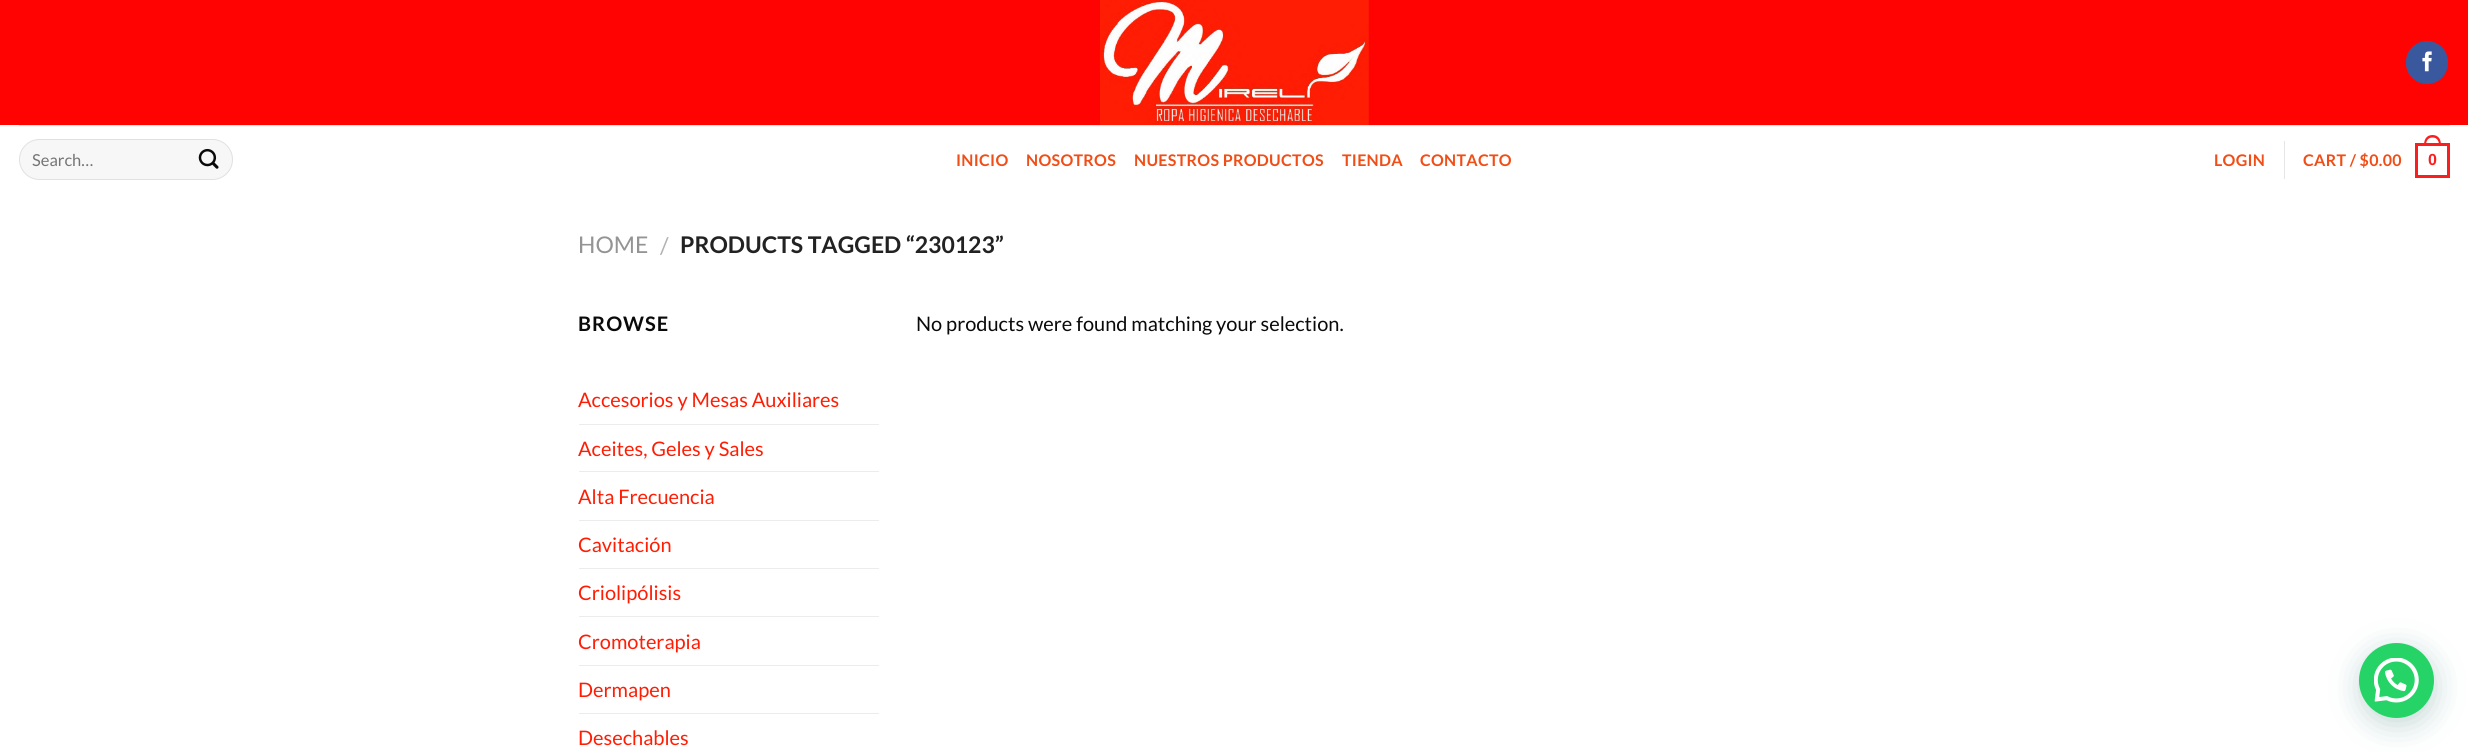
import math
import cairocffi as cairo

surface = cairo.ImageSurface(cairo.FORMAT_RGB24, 2468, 752)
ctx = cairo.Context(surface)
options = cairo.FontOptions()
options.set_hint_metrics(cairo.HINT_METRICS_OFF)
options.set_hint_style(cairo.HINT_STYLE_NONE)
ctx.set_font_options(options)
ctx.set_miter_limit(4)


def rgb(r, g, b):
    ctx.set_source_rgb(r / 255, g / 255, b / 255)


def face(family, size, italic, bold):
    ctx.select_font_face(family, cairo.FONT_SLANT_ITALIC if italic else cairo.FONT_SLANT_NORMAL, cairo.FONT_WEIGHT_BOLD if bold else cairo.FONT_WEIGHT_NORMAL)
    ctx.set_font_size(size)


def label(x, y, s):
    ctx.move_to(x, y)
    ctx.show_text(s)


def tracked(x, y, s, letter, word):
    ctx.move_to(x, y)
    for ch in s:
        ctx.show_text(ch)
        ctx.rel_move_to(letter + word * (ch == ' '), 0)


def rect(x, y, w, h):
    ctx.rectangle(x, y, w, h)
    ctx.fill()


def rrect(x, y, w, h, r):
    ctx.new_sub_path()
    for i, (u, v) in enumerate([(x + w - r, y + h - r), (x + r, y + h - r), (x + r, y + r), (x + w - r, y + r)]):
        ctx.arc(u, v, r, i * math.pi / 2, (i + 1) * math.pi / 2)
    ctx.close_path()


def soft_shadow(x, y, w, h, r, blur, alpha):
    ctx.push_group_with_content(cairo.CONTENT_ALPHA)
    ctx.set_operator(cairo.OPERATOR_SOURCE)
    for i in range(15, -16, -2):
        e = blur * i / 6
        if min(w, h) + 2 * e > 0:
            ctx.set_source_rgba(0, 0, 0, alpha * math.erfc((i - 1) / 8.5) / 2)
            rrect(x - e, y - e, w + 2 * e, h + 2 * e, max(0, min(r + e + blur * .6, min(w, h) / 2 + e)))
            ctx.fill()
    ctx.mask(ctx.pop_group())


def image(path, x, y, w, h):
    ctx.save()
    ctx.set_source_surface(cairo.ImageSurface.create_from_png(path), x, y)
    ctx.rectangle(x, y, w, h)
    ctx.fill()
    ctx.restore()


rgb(255, 255, 255)
ctx.paint()
rgb(255, 3, 3)
rect(0, 0, 2468, 125)
image('image0.png', 1100, 0, 269, 125)
rgb(58, 88, 157)
rrect(2406.5, 41.5, 41, 42, 20.5)
ctx.fill_preserve()
ctx.set_line_width(1)
ctx.stroke()
image('image1.png', 2422, 51, 10, 21)
rgb(231, 231, 231)
rect(19, 125, 2431, 1)
rgb(247, 247, 247)
rrect(19, 139, 214, 41, 20.5)
ctx.fill()
rrect(19.5, 139.5, 213, 40, 20)
ctx.set_source_rgba(0, 0, 0, 0.09)
ctx.stroke()
face('Lato', 16.5, 0, 0)
rgb(117, 117, 117)
label(32, 166, 'Search…')
image('image2.png', 198, 148, 21, 21)
face('Lato', 16, 0, 1)
rgb(241, 78, 23)
tracked(956, 166, 'INICIO', 0.3, 0)
tracked(1026, 166, 'NOSOTROS', 0.3, 0)
tracked(1134, 166, 'NUESTROS PRODUCTOS', 0.3, 0)
tracked(1342, 166, 'TIENDA', 0.3, 0)
tracked(1420, 166, 'CONTACTO', 0.3, 0)
tracked(2214, 166, 'LOGIN', 0.3, 0)
rgb(230, 230, 230)
rect(2284, 141, 1, 38)
rgb(241, 78, 23)
tracked(2303, 166, 'CART / $0.00', 0.3, 0)
ctx.rectangle(2416.5, 144.5, 32, 32)
rgb(250, 30, 30)
ctx.set_line_width(3)
ctx.stroke()
ctx.set_fill_rule(cairo.FILL_RULE_EVEN_ODD)
ctx.new_path()
ctx.move_to(2432.5, 135)
ctx.curve_to(2438.5, 135, 2441, 139.5, 2441, 145)
ctx.line_to(2424, 145)
ctx.curve_to(2424, 139.5, 2426.5, 135, 2432.5, 135)
ctx.close_path()
ctx.move_to(2432.5, 137.5)
ctx.curve_to(2437, 137.5, 2439, 141, 2439, 145)
ctx.line_to(2426, 145)
ctx.curve_to(2426, 141, 2428, 137.5, 2432.5, 137.5)
ctx.close_path()
ctx.fill()
face('Liberation Sans', 16, 0, 1)
tracked(2428, 165, '0', 0.3, 0)
face('Lato', 23, 0, 0)
rgb(148, 148, 148)
label(578, 253, 'HOME')
rgb(178, 178, 178)
label(660, 254, '/')
face('Lato', 23, 0, 1)
rgb(34, 34, 34)
label(680, 253, 'PRODUCTS TAGGED “230123”')
face('Lato', 20, 0, 1)
rgb(10, 10, 10)
tracked(578, 331, 'BROWSE', 1, 0)
face('Lato', 20, 0, 0)
rgb(255, 29, 4)
label(578, 407, 'Accesorios y Mesas Auxiliares')
rgb(236, 236, 236)
rect(579, 424, 300, 1)
rgb(255, 29, 4)
label(578, 456, 'Aceites, Geles y Sales')
rgb(236, 236, 236)
rect(579, 471, 300, 1)
rgb(255, 29, 4)
label(578, 504, 'Alta Frecuencia')
rgb(236, 236, 236)
rect(579, 520, 300, 1)
rgb(255, 29, 4)
label(578, 552, 'Cavitación')
rgb(236, 236, 236)
rect(579, 568, 300, 1)
rgb(255, 29, 4)
label(578, 600, 'Criolipólisis')
rgb(236, 236, 236)
rect(579, 616, 300, 1)
rgb(255, 29, 4)
label(578, 649, 'Cromoterapia')
rgb(236, 236, 236)
rect(579, 665, 300, 1)
rgb(255, 29, 4)
label(578, 697, 'Dermapen')
rgb(236, 236, 236)
rect(579, 713, 300, 1)
rgb(255, 29, 4)
label(578, 745, 'Desechables')
rgb(10, 10, 10)
label(916, 331, 'No products were found matching your selection.')
rgb(7, 94, 84)
soft_shadow(2360, 650, 75, 75, 37.5, 15, 0.24)
rgb(37, 211, 102)
ctx.arc(2396.5, 680.5, 37.5, 0, 2 * math.pi)
ctx.fill()
image('image3.png', 2374, 658, 45, 45)
surface.write_to_png('render.png')
